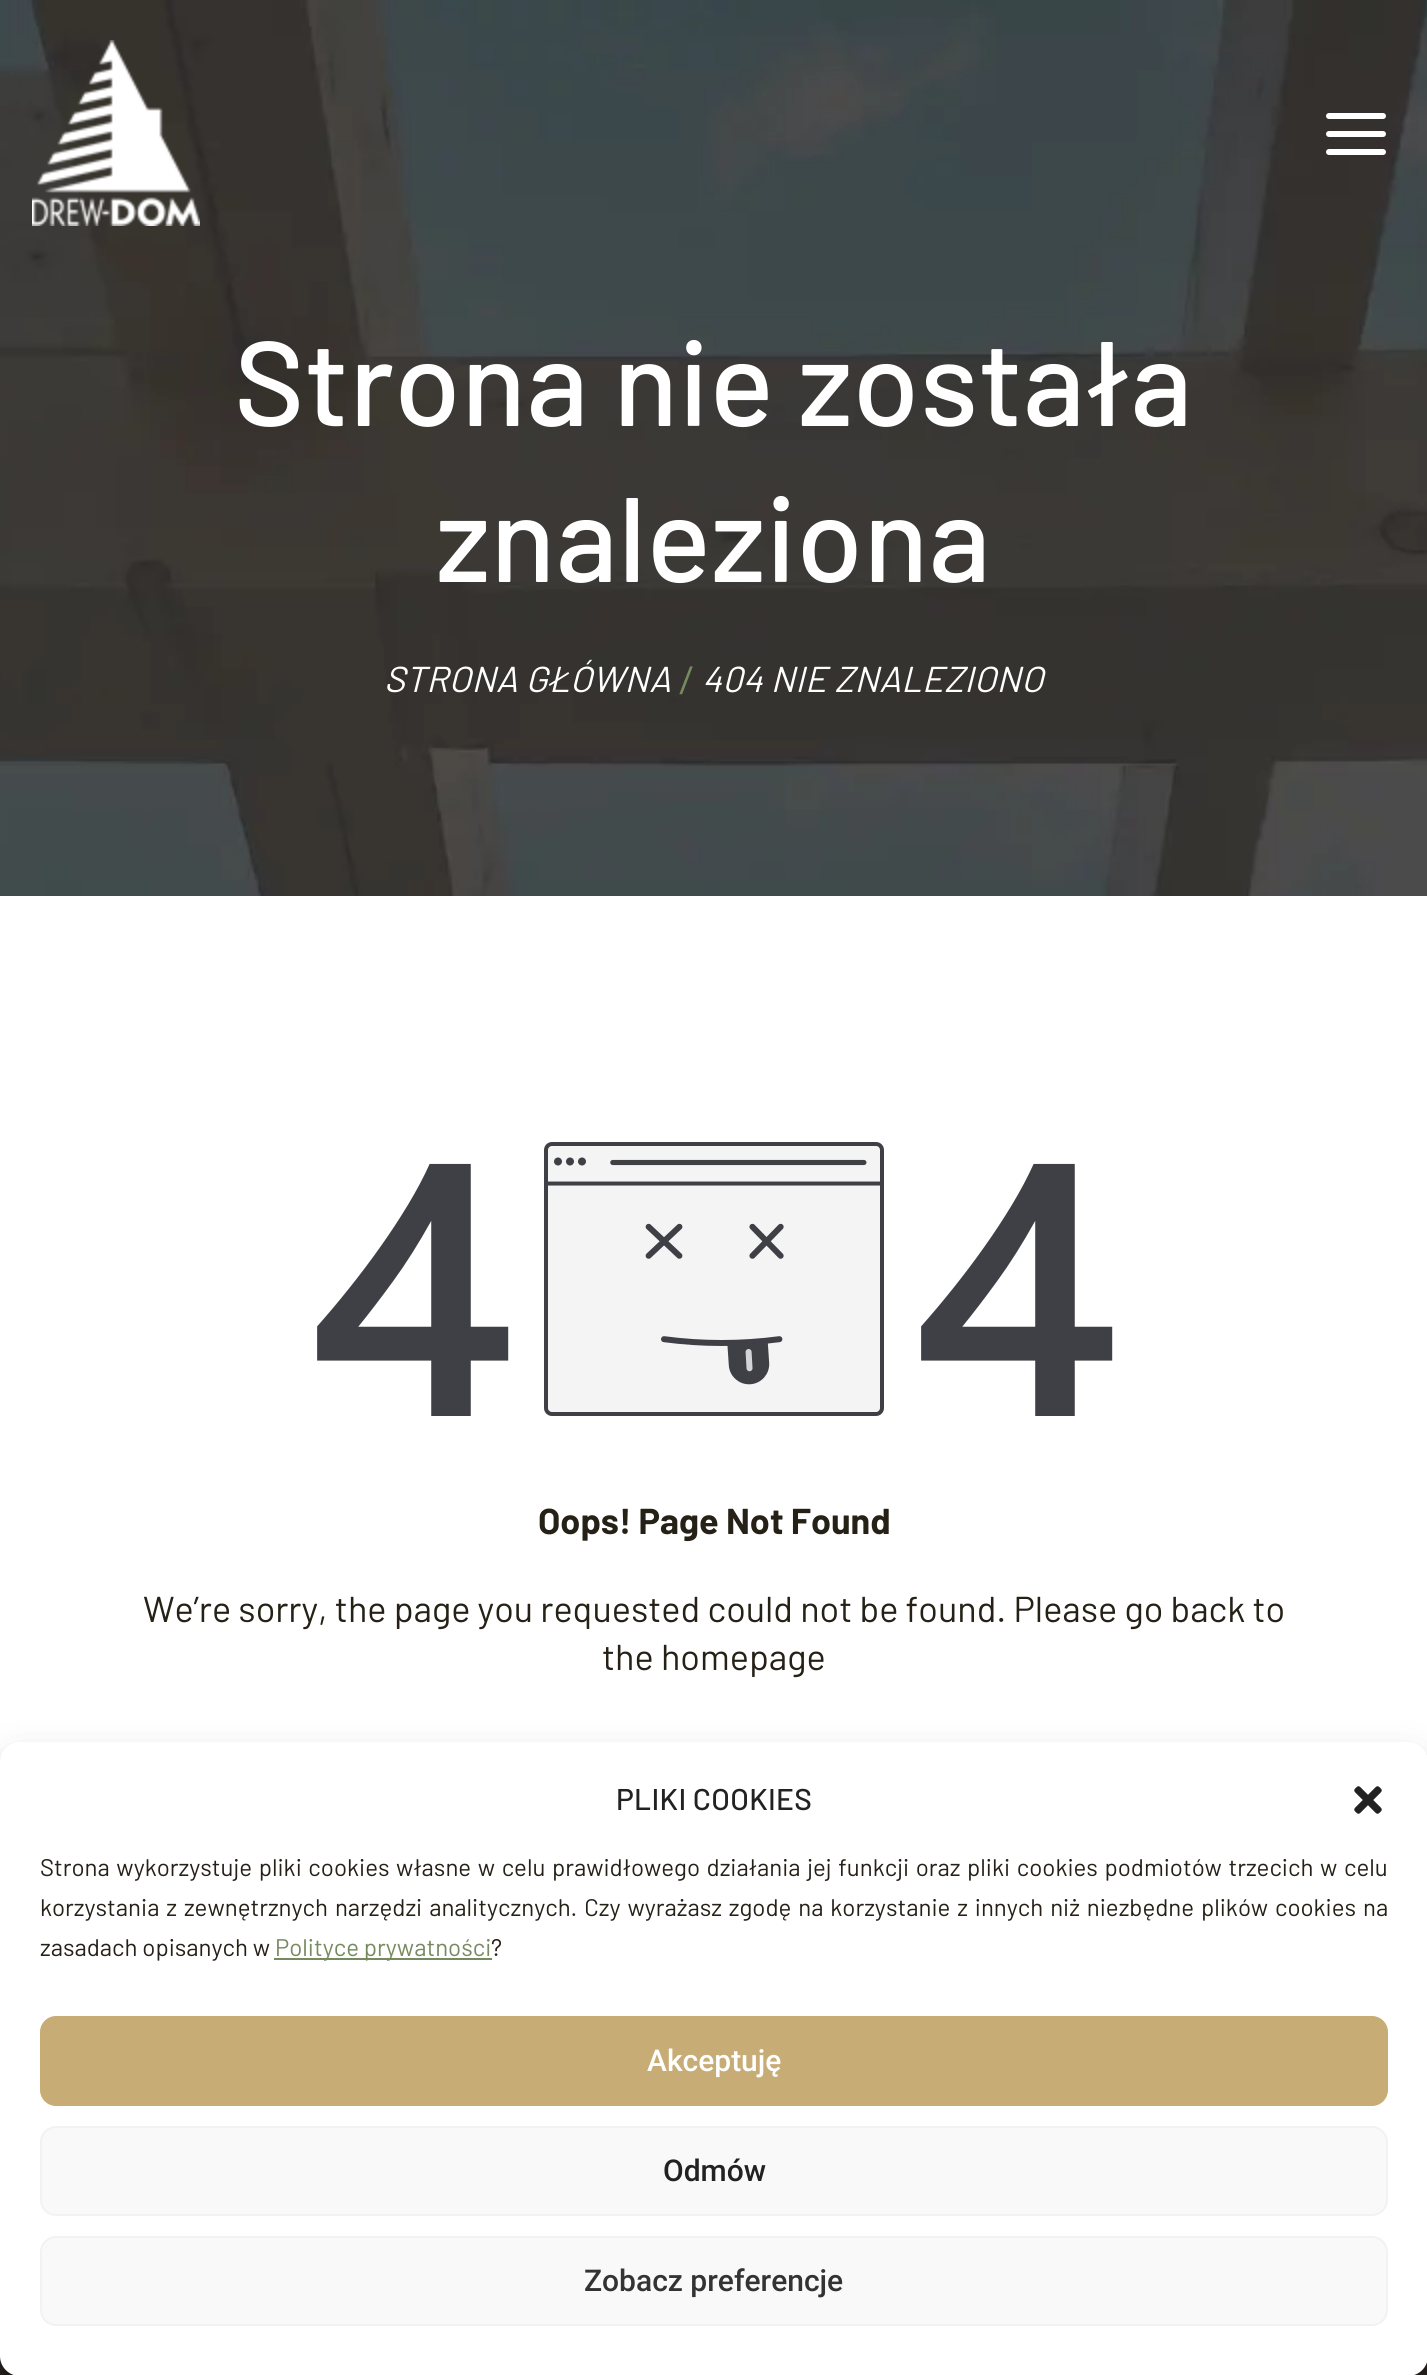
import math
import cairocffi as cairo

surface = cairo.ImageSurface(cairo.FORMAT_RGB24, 1427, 2375)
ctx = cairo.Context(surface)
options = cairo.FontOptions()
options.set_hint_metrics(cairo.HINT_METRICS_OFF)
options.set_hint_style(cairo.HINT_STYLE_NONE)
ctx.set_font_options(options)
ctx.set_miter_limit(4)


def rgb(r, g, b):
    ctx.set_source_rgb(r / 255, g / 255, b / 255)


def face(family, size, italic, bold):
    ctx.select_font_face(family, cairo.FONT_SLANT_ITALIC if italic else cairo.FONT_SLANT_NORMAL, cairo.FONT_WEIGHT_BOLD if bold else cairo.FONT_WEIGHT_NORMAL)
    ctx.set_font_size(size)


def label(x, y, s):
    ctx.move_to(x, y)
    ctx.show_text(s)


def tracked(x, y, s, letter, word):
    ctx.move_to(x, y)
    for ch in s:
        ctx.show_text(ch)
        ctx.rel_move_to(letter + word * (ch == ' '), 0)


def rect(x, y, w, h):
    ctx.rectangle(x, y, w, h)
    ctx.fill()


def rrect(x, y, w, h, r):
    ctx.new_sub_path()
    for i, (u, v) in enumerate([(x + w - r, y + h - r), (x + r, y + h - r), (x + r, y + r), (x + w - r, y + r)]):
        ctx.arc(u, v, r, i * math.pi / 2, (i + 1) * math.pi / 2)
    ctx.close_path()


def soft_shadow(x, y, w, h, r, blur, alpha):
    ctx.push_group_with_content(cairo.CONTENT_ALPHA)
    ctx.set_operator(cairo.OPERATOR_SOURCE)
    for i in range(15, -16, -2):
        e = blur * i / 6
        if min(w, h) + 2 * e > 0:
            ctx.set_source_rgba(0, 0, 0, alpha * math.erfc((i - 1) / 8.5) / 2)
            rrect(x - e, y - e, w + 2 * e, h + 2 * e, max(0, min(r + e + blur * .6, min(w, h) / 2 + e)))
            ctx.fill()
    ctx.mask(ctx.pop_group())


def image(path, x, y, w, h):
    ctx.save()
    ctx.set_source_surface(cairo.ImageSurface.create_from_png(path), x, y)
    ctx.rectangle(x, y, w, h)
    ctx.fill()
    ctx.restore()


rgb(255, 255, 255)
ctx.paint()
image('image2.png', 0, 0, 1427, 896)
image('image0.png', 32, 40, 168, 186)
image('image1.png', 1326, 113, 60, 42)
face('Barlow Medium', 120, 0, 0)
rgb(255, 255, 255)
tracked(234, 426, 'Strona nie została', 0.3, 0)
tracked(436, 582, 'znaleziona', 0.3, 0)
face('Barlow', 36, 1, 0)
tracked(384, 692, 'STRONA GŁÓWNA', 0.3, 0)
face('Roboto', 36, 0, 0)
rgb(117, 138, 94)
tracked(679, 692, '/', 0.3, 0)
face('Barlow', 36, 1, 0)
rgb(255, 255, 255)
tracked(702, 692, '404 NIE ZNALEZIONO', 0.3, 0)
image('image3.png', 317, 1142, 796, 274)
face('Barlow', 36, 0, 1)
rgb(38, 33, 23)
label(538, 1534, 'Oops! Page Not Found')
face('Barlow', 36, 0, 0)
label(143, 1622, 'We’re sorry, the page you requested could not be found. Please go back to')
label(602, 1670, 'the homepage')
image('image4.png', 0, 2356, 1427, 19)
rgb(0, 0, 0)
soft_shadow(0, 1754, 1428, 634, 20, 6, 0.23)
soft_shadow(0, 1762, 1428, 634, 20, 20, 0.19)
rgb(255, 255, 255)
rrect(0, 1742, 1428, 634, 20)
ctx.fill()
face('Barlow Medium', 30, 0, 0)
rgb(34, 34, 34)
tracked(616, 1810, 'PLIKI COOKIES', 0.3, 0)
image('image5.png', 1354, 1786, 28, 28)
face('Barlow', 24, 0, 0)
rgb(38, 33, 23)
tracked(40, 1876, 'Strona wykorzystuje pliki cookies własne w celu prawidłowego działania jej funkcji oraz pliki cookies podmiotów trzecich w celu', 0, 1.8)
tracked(40, 1916, 'korzystania z zewnętrznych narzędzi analitycznych. Czy wyrażasz zgodę na korzystanie z innych niż niezbędne plików cookies na', 0, 2.1)
label(40, 1956, 'zasadach opisanych w')
rgb(117, 138, 94)
rect(274, 1958, 218, 2)
label(275, 1956, 'Polityce prywatności')
rgb(38, 33, 23)
label(491, 1956, '?')
rgb(199, 173, 117)
rrect(41, 2017, 1346, 88, 15)
ctx.fill_preserve()
ctx.stroke()
face('Roboto Medium', 30, 0, 0)
rgb(255, 255, 255)
label(647, 2071, 'Akceptuję')
rgb(249, 249, 249)
rrect(41, 2127, 1346, 88, 15)
ctx.fill_preserve()
rgb(242, 242, 242)
ctx.stroke()
rgb(34, 34, 34)
label(663, 2181, 'Odmów')
rgb(249, 249, 249)
rrect(41, 2237, 1346, 88, 15)
ctx.fill_preserve()
rgb(242, 242, 242)
ctx.stroke()
rgb(51, 51, 51)
label(584, 2291, 'Zobacz preferencje')
surface.write_to_png('render.png')
